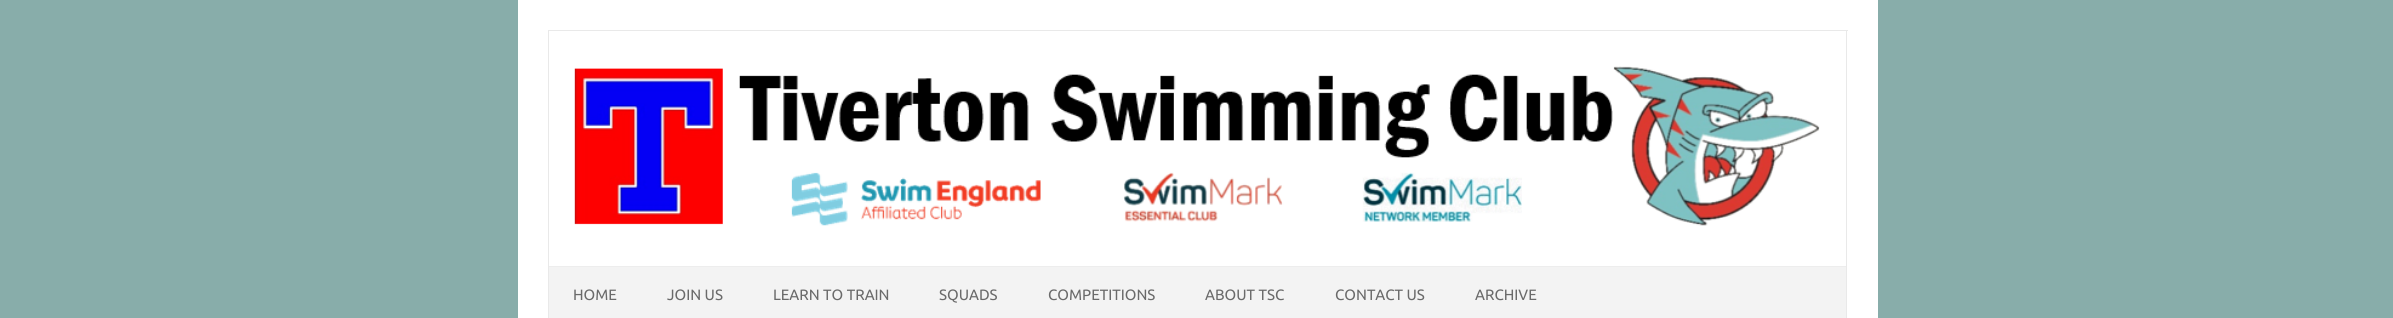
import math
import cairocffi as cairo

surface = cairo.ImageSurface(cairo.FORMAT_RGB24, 2393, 318)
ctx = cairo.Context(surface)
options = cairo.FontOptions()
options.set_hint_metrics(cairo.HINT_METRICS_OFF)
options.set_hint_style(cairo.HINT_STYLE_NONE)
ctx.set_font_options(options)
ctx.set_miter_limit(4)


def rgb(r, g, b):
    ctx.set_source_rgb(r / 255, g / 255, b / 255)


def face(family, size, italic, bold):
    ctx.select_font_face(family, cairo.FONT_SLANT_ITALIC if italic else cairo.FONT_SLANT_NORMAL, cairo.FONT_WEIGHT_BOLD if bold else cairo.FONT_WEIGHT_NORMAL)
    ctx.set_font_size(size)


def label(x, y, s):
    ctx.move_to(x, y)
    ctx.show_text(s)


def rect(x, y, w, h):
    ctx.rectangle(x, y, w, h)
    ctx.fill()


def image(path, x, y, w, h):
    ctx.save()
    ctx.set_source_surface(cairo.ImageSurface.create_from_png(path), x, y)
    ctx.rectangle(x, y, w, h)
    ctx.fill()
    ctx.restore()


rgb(136, 173, 170)
ctx.paint()
rgb(255, 255, 255)
rect(518, 0, 1360, 318)
rgb(233, 233, 233)
rect(548, 30, 1300, 1)
rect(1846, 30, 1, 288)
rect(548, 30, 1, 288)
image('image0.png', 574, 66, 1246, 160)
rgb(243, 243, 243)
rect(549, 267, 1297, 51)
rgb(237, 237, 237)
rect(549, 266, 1297, 1)
face('Ubuntu', 15, 0, 0)
rgb(106, 106, 106)
label(573, 300, 'HOME')
label(667, 300, 'JOIN US')
label(773, 300, 'LEARN TO TRAIN')
label(939, 300, 'SQUADS')
label(1048, 300, 'COMPETITIONS')
label(1205, 300, 'ABOUT TSC')
label(1335, 300, 'CONTACT US')
label(1475, 300, 'ARCHIVE')
surface.write_to_png('render.png')
